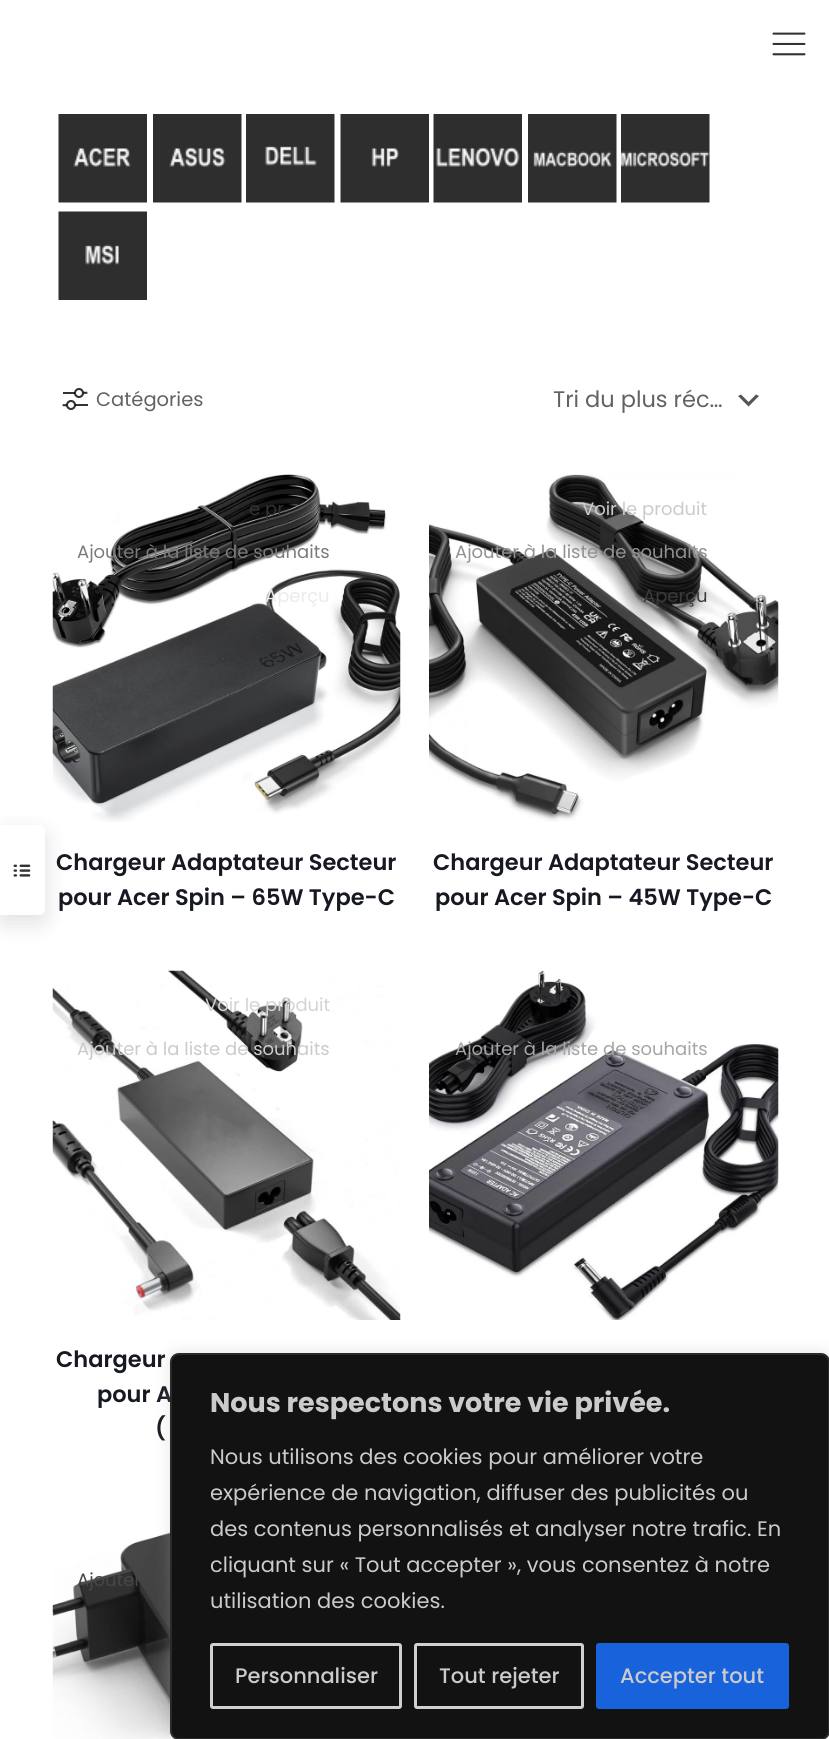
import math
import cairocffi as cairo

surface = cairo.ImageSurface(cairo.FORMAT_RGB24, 829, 1739)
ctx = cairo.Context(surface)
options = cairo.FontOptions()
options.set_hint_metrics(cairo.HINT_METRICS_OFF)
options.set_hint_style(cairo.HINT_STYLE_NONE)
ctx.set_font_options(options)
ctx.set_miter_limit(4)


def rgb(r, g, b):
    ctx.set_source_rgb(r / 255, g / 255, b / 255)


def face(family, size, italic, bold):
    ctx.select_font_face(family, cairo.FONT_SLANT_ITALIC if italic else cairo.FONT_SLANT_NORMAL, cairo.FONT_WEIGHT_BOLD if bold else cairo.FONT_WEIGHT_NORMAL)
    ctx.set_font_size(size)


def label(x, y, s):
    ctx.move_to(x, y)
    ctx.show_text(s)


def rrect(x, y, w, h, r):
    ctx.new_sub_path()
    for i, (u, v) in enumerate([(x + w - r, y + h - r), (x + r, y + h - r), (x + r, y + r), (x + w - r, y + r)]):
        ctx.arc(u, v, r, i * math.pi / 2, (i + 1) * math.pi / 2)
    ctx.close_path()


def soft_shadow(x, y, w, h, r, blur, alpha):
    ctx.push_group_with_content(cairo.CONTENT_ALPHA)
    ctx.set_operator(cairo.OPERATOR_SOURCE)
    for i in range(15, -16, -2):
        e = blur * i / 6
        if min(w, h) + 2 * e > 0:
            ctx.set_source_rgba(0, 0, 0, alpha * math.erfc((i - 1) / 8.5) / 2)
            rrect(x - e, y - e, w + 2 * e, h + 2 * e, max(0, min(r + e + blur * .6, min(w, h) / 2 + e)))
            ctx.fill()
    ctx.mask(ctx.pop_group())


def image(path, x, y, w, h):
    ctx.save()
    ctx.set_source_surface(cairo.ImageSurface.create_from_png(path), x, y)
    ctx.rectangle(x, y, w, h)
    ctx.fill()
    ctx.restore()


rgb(255, 255, 255)
ctx.paint()
image('image11.png', 52, 474, 349, 348)
rgb(8, 8, 14)
soft_shadow(0, 833, 45, 90, 6, 11, 0.13)
rgb(255, 255, 255)
ctx.new_path()
ctx.move_to(0, 825)
ctx.line_to(39, 825)
ctx.curve_to(42.5, 825, 45, 827.5, 45, 831)
ctx.line_to(45, 909)
ctx.curve_to(45, 912.5, 42.5, 915, 39, 915)
ctx.line_to(0, 915)
ctx.close_path()
ctx.fill()
image('image0.png', 13, 864, 18, 13)
image('image1.png', 772, 32, 34, 24)
image('image2.png', 58, 114, 89, 89)
image('image3.png', 153, 114, 89, 89)
image('image4.png', 246, 114, 89, 89)
image('image5.png', 340, 114, 89, 89)
image('image6.png', 433, 114, 89, 89)
image('image7.png', 528, 114, 89, 89)
image('image8.png', 621, 114, 89, 89)
image('image9.png', 58, 211, 89, 89)
image('image10.png', 62, 388, 26, 22)
face('Poppins', 19.5, 0, 0)
rgb(98, 98, 98)
label(96, 406, 'Catégories')
rgb(85, 85, 85)
ctx.new_path()
ctx.move_to(741, 394.5)
ctx.line_to(748.5, 402)
ctx.line_to(756, 394.5)
ctx.line_to(759, 396)
ctx.line_to(748.5, 406.5)
ctx.line_to(738, 396)
ctx.close_path()
ctx.fill()
face('Poppins', 22.5, 0, 0)
rgb(98, 98, 98)
label(553, 407, 'Tri du plus réc…')
face('Poppins', 18, 0, 0)
rgb(50, 50, 50)
label(249, 515, 'e pr')
rgb(123, 123, 123)
label(77, 558, 'Ajouter à la liste de souhaits')
rgb(235, 235, 235)
label(265, 602, 'Aperçu')
face('Poppins SemiBold', 22.5, 0, 0)
rgb(22, 25, 34)
label(56, 870, 'Chargeur Adaptateur Secteur')
label(58, 905, 'pour Acer Spin – 65W Type-C')
image('image12.png', 429, 474, 350, 348)
face('Poppins', 18, 0, 0)
rgb(203, 203, 203)
label(582, 515, 'Voir le produit')
rgb(145, 145, 145)
label(455, 558, 'Ajouter à la liste de souhaits')
rgb(58, 58, 58)
label(643, 602, 'Aperçu')
face('Poppins SemiBold', 22.5, 0, 0)
rgb(22, 25, 34)
label(433, 870, 'Chargeur Adaptateur Secteur')
label(435, 905, 'pour Acer Spin – 45W Type-C')
image('image13.png', 52, 970, 349, 350)
face('Poppins', 18, 0, 0)
rgb(212, 212, 212)
label(205, 1011, 'Voir le produit')
rgb(203, 203, 203)
label(77, 1055, 'Ajouter à la liste de souhaits')
face('Poppins SemiBold', 22.5, 0, 0)
rgb(22, 25, 34)
label(56, 1367, 'Chargeur')
label(97, 1402, 'pour A')
label(155, 1436, '(')
image('image14.png', 429, 970, 350, 350)
face('Poppins', 18, 0, 0)
rgb(165, 165, 166)
label(455, 1055, 'Ajouter à la liste de souhaits')
image('image15.png', 52, 1503, 123, 236)
rgb(70, 70, 70)
label(77, 1586, 'Ajouter')
rgb(172, 171, 171)
soft_shadow(170, 1352, 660, 387, 9, 7.5, 0.3)
rgb(18, 18, 18)
rrect(171, 1354, 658, 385, 8)
ctx.fill_preserve()
rgb(42, 42, 42)
ctx.stroke()
face('Poppins', 27, 0, 1)
rgb(203, 203, 203)
label(210, 1412, 'Nous respectons votre vie privée.')
face('Poppins', 21, 0, 0)
label(210, 1464, 'Nous utilisons des cookies pour améliorer votre')
label(210, 1500, 'expérience de navigation, diffuser des publicités ou')
label(210, 1536, 'des contenus personnalisés et analyser notre trafic. En')
label(210, 1572, 'cliquant sur « Tout accepter », vous consentez à notre')
label(210, 1608, 'utilisation des cookies.')
rrect(211.5, 1644.5, 189, 63, 1.5)
rgb(208, 208, 208)
ctx.set_line_width(3)
ctx.stroke()
face('Poppins Medium', 21, 0, 0)
rgb(203, 203, 203)
label(235, 1683, 'Personnaliser')
rrect(415.5, 1644.5, 167, 63, 1.5)
rgb(208, 208, 208)
ctx.stroke()
rgb(203, 203, 203)
label(439, 1683, 'Tout rejeter')
rgb(24, 99, 220)
rrect(597.5, 1644.5, 190, 63, 1.5)
ctx.fill_preserve()
ctx.stroke()
rgb(203, 203, 203)
label(620, 1683, 'Accepter tout')
surface.write_to_png('render.png')
